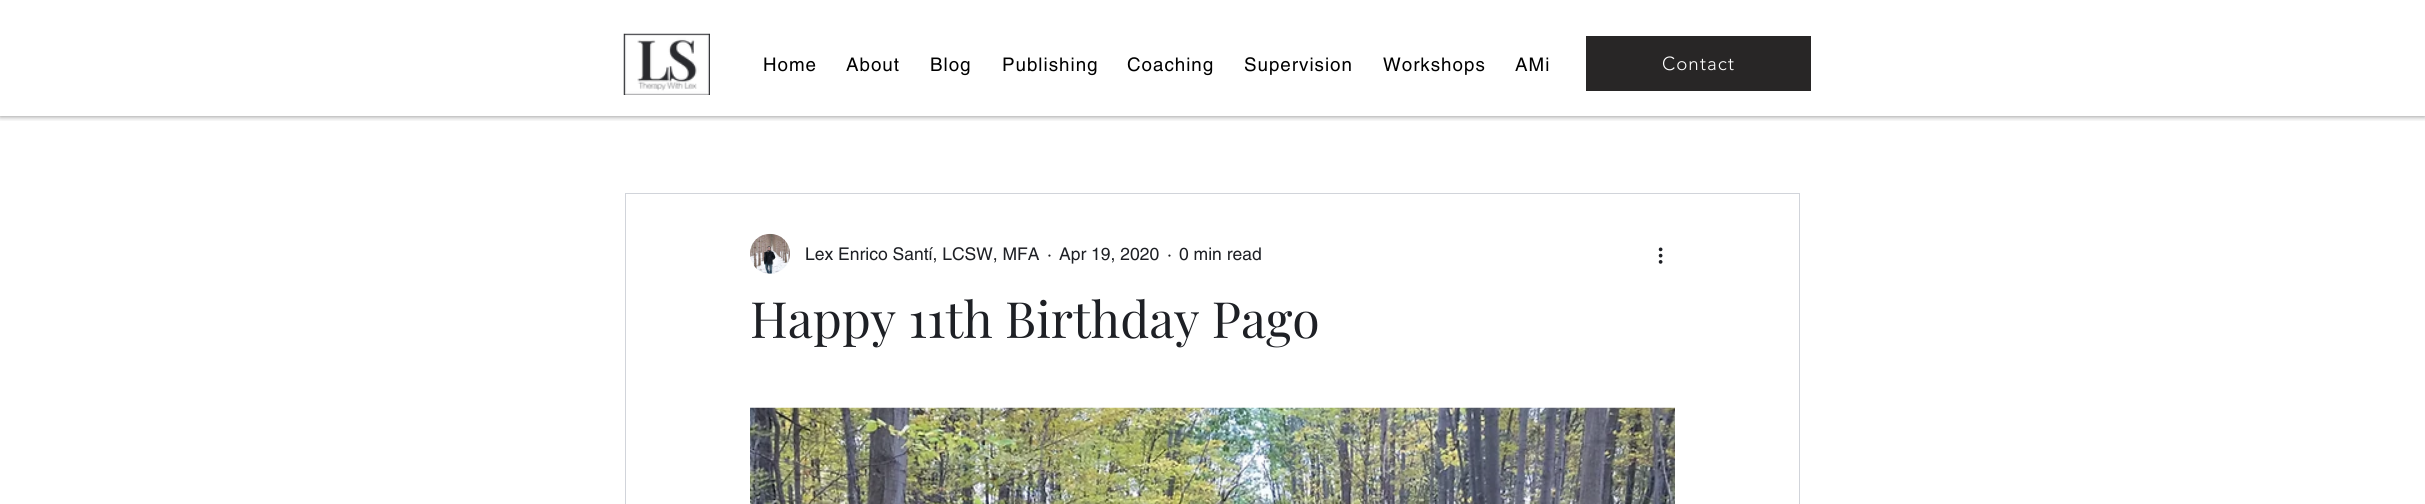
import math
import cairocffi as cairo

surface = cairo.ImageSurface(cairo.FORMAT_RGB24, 2425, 504)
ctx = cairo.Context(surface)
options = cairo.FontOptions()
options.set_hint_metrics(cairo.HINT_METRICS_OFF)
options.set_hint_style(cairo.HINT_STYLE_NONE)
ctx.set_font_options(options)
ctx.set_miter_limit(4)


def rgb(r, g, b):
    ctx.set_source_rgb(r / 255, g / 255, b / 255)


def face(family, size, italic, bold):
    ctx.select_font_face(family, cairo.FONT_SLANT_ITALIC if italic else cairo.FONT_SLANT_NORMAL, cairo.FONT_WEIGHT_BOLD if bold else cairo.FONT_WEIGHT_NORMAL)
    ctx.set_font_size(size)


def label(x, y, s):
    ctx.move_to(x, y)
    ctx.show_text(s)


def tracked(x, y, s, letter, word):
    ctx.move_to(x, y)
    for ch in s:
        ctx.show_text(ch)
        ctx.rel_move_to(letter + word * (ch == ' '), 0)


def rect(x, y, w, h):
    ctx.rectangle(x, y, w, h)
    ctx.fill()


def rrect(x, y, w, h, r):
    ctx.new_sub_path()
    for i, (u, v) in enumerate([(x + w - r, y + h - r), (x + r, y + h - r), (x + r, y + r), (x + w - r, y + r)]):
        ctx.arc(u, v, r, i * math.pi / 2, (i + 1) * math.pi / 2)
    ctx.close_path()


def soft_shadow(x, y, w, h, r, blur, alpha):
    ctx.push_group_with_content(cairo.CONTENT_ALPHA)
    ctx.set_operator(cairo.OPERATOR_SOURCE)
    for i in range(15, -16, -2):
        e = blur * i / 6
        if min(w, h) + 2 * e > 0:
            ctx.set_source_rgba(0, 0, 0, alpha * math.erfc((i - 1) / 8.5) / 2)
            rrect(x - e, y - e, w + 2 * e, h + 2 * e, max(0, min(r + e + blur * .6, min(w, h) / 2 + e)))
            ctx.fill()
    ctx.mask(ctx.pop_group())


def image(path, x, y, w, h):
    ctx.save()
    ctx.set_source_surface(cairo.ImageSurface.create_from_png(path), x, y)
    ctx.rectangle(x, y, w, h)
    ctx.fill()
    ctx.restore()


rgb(255, 255, 255)
ctx.paint()
ctx.save()
ctx.rectangle(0, 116, 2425, 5)
ctx.clip()
rgb(0, 0, 0)
soft_shadow(0, 0, 2425, 116, 0, 3, 0.5)
ctx.restore()
image('image0.png', 623, 33, 87, 62)
face('helvetica', 18.75, 0, 0)
rgb(0, 0, 0)
tracked(763, 71, 'Home', 1, 0)
tracked(846, 71, 'About', 1, 0)
tracked(930, 71, 'Blog', 1, 0)
tracked(1002, 71, 'Publishing', 1, 0)
tracked(1127, 71, 'Coaching', 1, 0)
tracked(1244, 71, 'Supervision', 1, 0)
tracked(1383, 71, 'Workshops', 1, 0)
tracked(1515, 71, 'AMi', 1, 0)
rgb(40, 38, 38)
rect(1586, 36, 225, 55)
face('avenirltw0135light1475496 Light', 18.75, 0, 0)
rgb(255, 255, 255)
tracked(1662, 70, 'Contact', 1, 0)
ctx.rectangle(625.5, 193.5, 1174, 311)
rgb(209, 212, 218)
ctx.set_line_width(1)
ctx.stroke()
image('image1.png', 750, 233, 40, 41)
face('helvetica', 17.5, 0, 0)
rgb(30, 32, 37)
label(805, 260, 'Lex Enrico Santí, LCSW, MFA')
label(1047, 260, '·')
label(1059, 260, 'Apr 19, 2020')
label(1167, 260, '·')
label(1179, 260, '0 min read')
image('image2.png', 1658, 247, 5, 17)
face('Playfair Display', 50, 0, 0)
label(750, 338, 'Happy 11th Birthday Pago')
image('image3.png', 750, 407, 925, 97)
surface.write_to_png('render.png')
